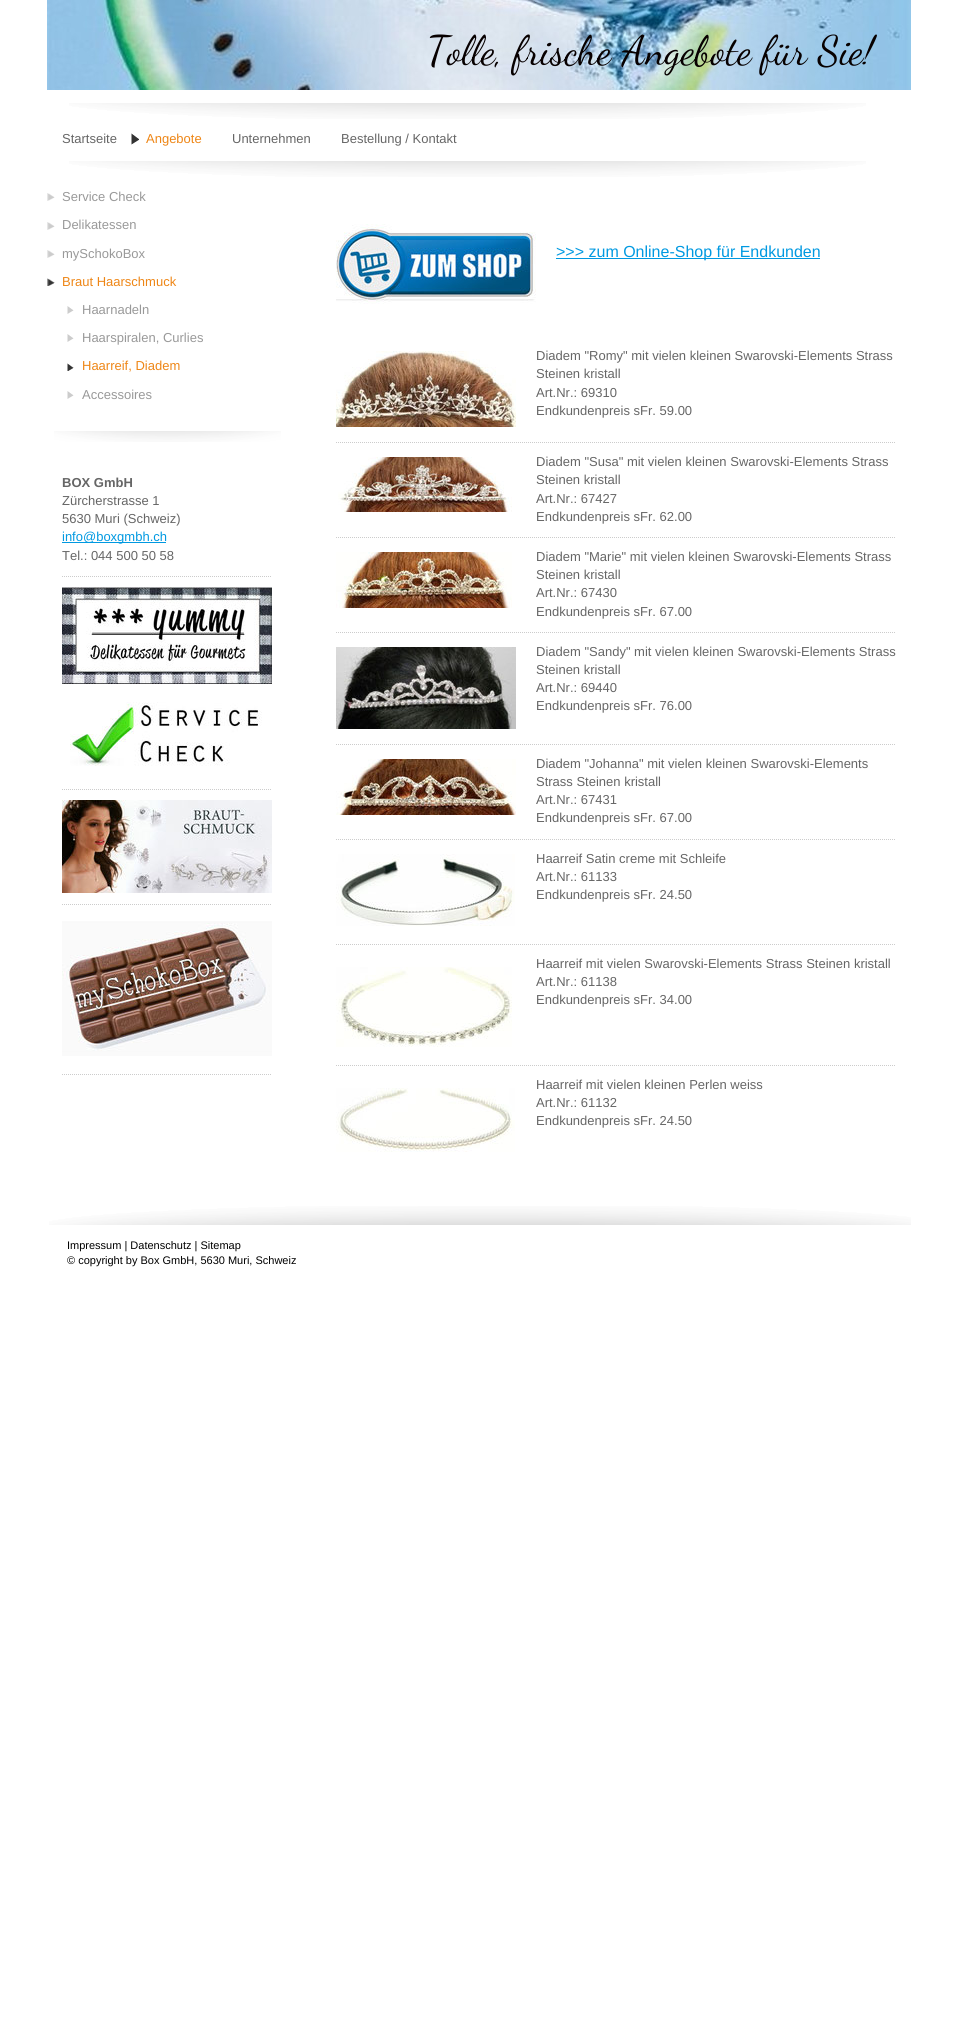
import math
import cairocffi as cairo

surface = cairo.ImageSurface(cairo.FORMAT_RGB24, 957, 2032)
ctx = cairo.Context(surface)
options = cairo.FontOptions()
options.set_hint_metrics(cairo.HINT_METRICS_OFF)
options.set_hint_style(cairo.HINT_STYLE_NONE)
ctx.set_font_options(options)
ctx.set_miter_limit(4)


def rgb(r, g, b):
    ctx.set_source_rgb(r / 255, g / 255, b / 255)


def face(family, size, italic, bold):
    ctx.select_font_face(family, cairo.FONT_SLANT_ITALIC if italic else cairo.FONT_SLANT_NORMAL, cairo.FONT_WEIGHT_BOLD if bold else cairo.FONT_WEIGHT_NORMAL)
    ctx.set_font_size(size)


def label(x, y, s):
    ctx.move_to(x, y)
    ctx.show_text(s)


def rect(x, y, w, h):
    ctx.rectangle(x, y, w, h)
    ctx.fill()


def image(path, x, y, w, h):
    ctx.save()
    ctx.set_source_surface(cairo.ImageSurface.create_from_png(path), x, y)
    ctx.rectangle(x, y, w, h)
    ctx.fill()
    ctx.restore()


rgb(255, 255, 255)
ctx.paint()
image('image0.png', 69, 161, 797, 16)
image('image1.png', 47, 0, 864, 90)
face('Dancing Script', 41, 0, 0)
rgb(7, 0, 0)
label(427, 64, 'Tolle, frische Angebote für Sie!')
image('image0.png', 69, 103, 797, 16)
face('Liberation Sans', 13, 0, 0)
rgb(102, 102, 102)
label(62, 143, 'Startseite')
image('image2.png', 131, 133, 8, 12)
rgb(238, 134, 22)
label(146, 143, 'Angebote')
rgb(102, 102, 102)
label(232, 143, 'Unternehmen')
label(341, 143, 'Bestellung / Kontakt')
image('image3.png', 54, 431, 227, 11)
image('image4.png', 47, 193, 8, 8)
rgb(153, 153, 153)
label(62, 201, 'Service Check')
image('image4.png', 47, 222, 8, 8)
label(62, 229, 'Delikatessen')
image('image4.png', 47, 250, 8, 8)
label(62, 258, 'mySchokoBox')
image('image5.png', 47, 278, 8, 8)
rgb(238, 134, 22)
label(62, 286, 'Braut Haarschmuck')
image('image6.png', 67, 306, 7, 8)
rgb(153, 153, 153)
label(82, 314, 'Haarnadeln')
image('image6.png', 67, 334, 7, 8)
label(82, 342, 'Haarspiralen, Curlies')
image('image7.png', 67, 363, 7, 8)
rgb(238, 134, 22)
label(82, 370, 'Haarreif, Diadem')
image('image6.png', 67, 391, 7, 8)
rgb(153, 153, 153)
label(82, 399, 'Accessoires')
face('Liberation Sans', 13, 0, 1)
rgb(102, 102, 102)
label(62, 487, 'BOX GmbH')
face('Liberation Sans', 13, 0, 0)
label(62, 505, 'Zürcherstrasse 1')
label(62, 523, '5630 Muri (Schweiz)')
rgb(0, 153, 225)
rect(62, 542, 104, 1)
label(62, 541, 'info@boxgmbh.ch')
rgb(102, 102, 102)
label(62, 560, 'Tel.: 044 500 50 58')
ctx.new_path()
ctx.move_to(62, 576.5)
ctx.line_to(272, 576.5)
rgb(204, 204, 204)
ctx.set_line_width(1)
ctx.set_dash([1, 1])
ctx.stroke()
image('image8.png', 62, 587, 210, 97)
image('image9.png', 70, 702, 192, 64)
ctx.new_path()
ctx.move_to(62, 789.5)
ctx.line_to(272, 789.5)
ctx.stroke()
image('image10.png', 62, 800, 210, 93)
ctx.new_path()
ctx.move_to(62, 904.5)
ctx.line_to(272, 904.5)
ctx.stroke()
image('image11.png', 62, 921, 210, 135)
ctx.new_path()
ctx.move_to(62, 1074.5)
ctx.line_to(272, 1074.5)
ctx.stroke()
image('image12.png', 336, 224, 200, 80)
rgb(0, 153, 225)
rect(556, 258, 264, 1)
face('Liberation Sans', 16, 0, 0)
label(556, 257, '>>> zum Online-Shop für Endkunden')
image('image13.png', 336, 351, 180, 76)
face('Liberation Sans', 13, 0, 0)
rgb(102, 102, 102)
label(536, 360, 'Diadem "Romy" mit vielen kleinen Swarovski-Elements Strass')
label(536, 378, 'Steinen kristall')
label(536, 397, 'Art.Nr.: 69310')
label(536, 415, 'Endkundenpreis sFr. 59.00')
ctx.new_path()
ctx.move_to(336, 442.5)
ctx.line_to(896, 442.5)
rgb(204, 204, 204)
ctx.stroke()
image('image14.png', 338, 457, 174, 55)
rgb(102, 102, 102)
label(536, 466, 'Diadem "Susa" mit vielen kleinen Swarovski-Elements Strass')
label(536, 484, 'Steinen kristall')
label(536, 503, 'Art.Nr.: 67427')
label(536, 521, 'Endkundenpreis sFr. 62.00')
ctx.new_path()
ctx.move_to(336, 537.5)
ctx.line_to(896, 537.5)
rgb(204, 204, 204)
ctx.stroke()
image('image15.png', 336, 552, 176, 56)
rgb(102, 102, 102)
label(536, 561, 'Diadem "Marie" mit vielen kleinen Swarovski-Elements Strass')
label(536, 579, 'Steinen kristall')
label(536, 597, 'Art.Nr.: 67430')
label(536, 616, 'Endkundenpreis sFr. 67.00')
ctx.new_path()
ctx.move_to(336, 632.5)
ctx.line_to(896, 632.5)
rgb(204, 204, 204)
ctx.stroke()
image('image16.png', 336, 647, 180, 82)
rgb(102, 102, 102)
label(536, 656, 'Diadem "Sandy" mit vielen kleinen Swarovski-Elements Strass')
label(536, 674, 'Steinen kristall')
label(536, 692, 'Art.Nr.: 69440')
label(536, 710, 'Endkundenpreis sFr. 76.00')
ctx.new_path()
ctx.move_to(336, 744.5)
ctx.line_to(896, 744.5)
rgb(204, 204, 204)
ctx.stroke()
image('image17.png', 336, 759, 180, 56)
rgb(102, 102, 102)
label(536, 768, 'Diadem "Johanna" mit vielen kleinen Swarovski-Elements')
label(536, 786, 'Strass Steinen kristall')
label(536, 804, 'Art.Nr.: 67431')
label(536, 822, 'Endkundenpreis sFr. 67.00')
ctx.new_path()
ctx.move_to(336, 839.5)
ctx.line_to(896, 839.5)
rgb(204, 204, 204)
ctx.stroke()
image('image18.png', 336, 854, 179, 72)
rgb(102, 102, 102)
label(536, 863, 'Haarreif Satin creme mit Schleife')
label(536, 881, 'Art.Nr.: 61133')
label(536, 899, 'Endkundenpreis sFr. 24.50')
ctx.new_path()
ctx.move_to(336, 944.5)
ctx.line_to(896, 944.5)
rgb(204, 204, 204)
ctx.stroke()
image('image19.png', 336, 967, 176, 80)
rgb(102, 102, 102)
label(536, 968, 'Haarreif mit vielen Swarovski-Elements Strass Steinen kristall')
label(536, 986, 'Art.Nr.: 61138')
label(536, 1004, 'Endkundenpreis sFr. 34.00')
ctx.new_path()
ctx.move_to(336, 1065.5)
ctx.line_to(896, 1065.5)
rgb(204, 204, 204)
ctx.stroke()
image('image20.png', 336, 1088, 179, 64)
rgb(102, 102, 102)
label(536, 1089, 'Haarreif mit vielen kleinen Perlen weiss')
label(536, 1107, 'Art.Nr.: 61132')
label(536, 1125, 'Endkundenpreis sFr. 24.50')
image('image21.png', 49, 1206, 862, 19)
face('Liberation Sans', 11, 0, 0)
rgb(0, 0, 0)
label(67, 1249, 'Impressum | Datenschutz | Sitemap')
ctx.save()
ctx.rectangle(67, 1238, 824, 30)
ctx.clip()
label(67, 1264, '© copyright by Box GmbH, 5630 Muri, Schweiz')
ctx.restore()
surface.write_to_png('render.png')
